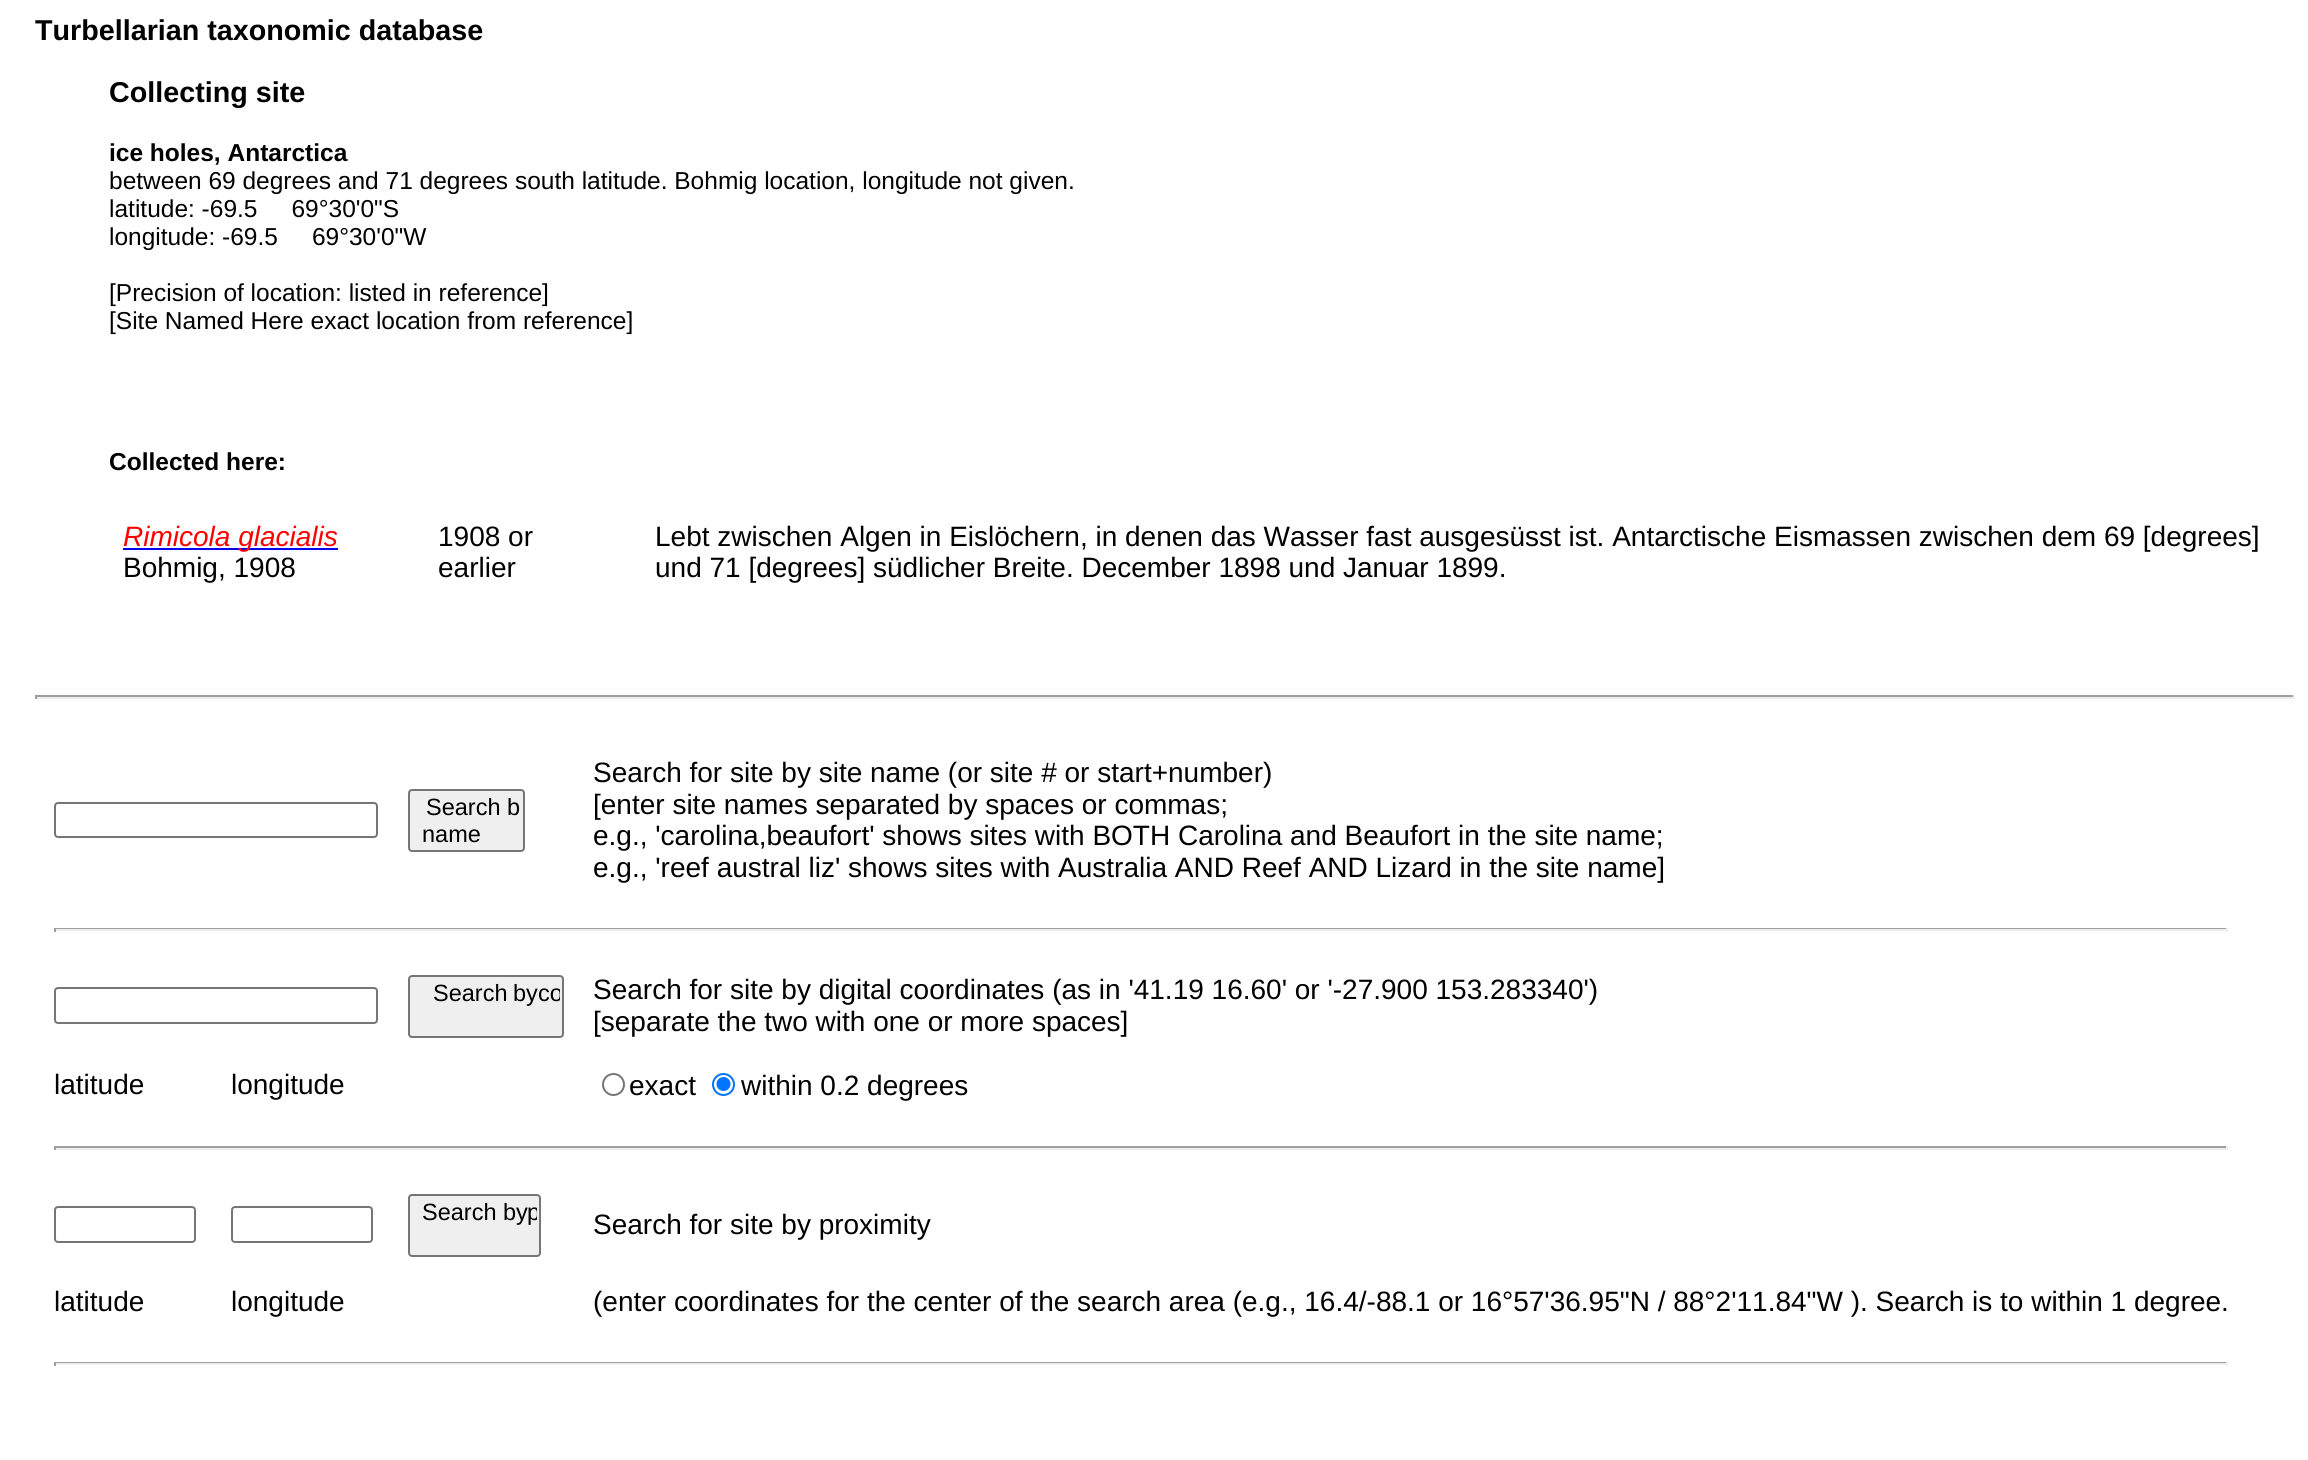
import math
import cairocffi as cairo

surface = cairo.ImageSurface(cairo.FORMAT_RGB24, 2308, 1460)
ctx = cairo.Context(surface)
options = cairo.FontOptions()
options.set_hint_metrics(cairo.HINT_METRICS_OFF)
options.set_hint_style(cairo.HINT_STYLE_NONE)
ctx.set_font_options(options)
ctx.set_miter_limit(4)


def rgb(r, g, b):
    ctx.set_source_rgb(r / 255, g / 255, b / 255)


def face(family, size, italic, bold):
    ctx.select_font_face(family, cairo.FONT_SLANT_ITALIC if italic else cairo.FONT_SLANT_NORMAL, cairo.FONT_WEIGHT_BOLD if bold else cairo.FONT_WEIGHT_NORMAL)
    ctx.set_font_size(size)


def label(x, y, s):
    ctx.move_to(x, y)
    ctx.show_text(s)


def tracked(x, y, s, letter, word):
    ctx.move_to(x, y)
    for ch in s:
        ctx.show_text(ch)
        ctx.rel_move_to(letter + word * (ch == ' '), 0)


def rect(x, y, w, h):
    ctx.rectangle(x, y, w, h)
    ctx.fill()


def rrect(x, y, w, h, r):
    ctx.new_sub_path()
    for i, (u, v) in enumerate([(x + w - r, y + h - r), (x + r, y + h - r), (x + r, y + r), (x + w - r, y + r)]):
        ctx.arc(u, v, r, i * math.pi / 2, (i + 1) * math.pi / 2)
    ctx.close_path()


rgb(255, 255, 255)
ctx.paint()
face('Liberation Sans', 28.7, 0, 1)
rgb(0, 0, 0)
label(35, 40, 'Turbellarian taxonomic database')
label(109, 102, 'Collecting site')
face('Liberation Sans', 24.5, 0, 1)
label(109, 161, 'ice holes, Antarctica')
face('Liberation Sans', 24.5, 0, 0)
label(109, 189, 'between 69 degrees and 71 degrees south latitude. Bohmig location, longitude not given.')
label(109, 217, 'latitude: -69.5     69°30\'0"S')
label(109, 245, 'longitude: -69.5     69°30\'0"W')
label(109, 301, '[Precision of location: listed in reference]')
label(109, 329, '[Site Named Here exact location from reference]')
face('Liberation Sans', 24.5, 0, 1)
label(109, 470, 'Collected here:')
rgb(0, 0, 238)
rect(123, 548, 215, 2)
face('Liberation Sans', 28, 1, 0)
rgb(255, 0, 0)
label(123, 546, 'Rimicola glacialis')
face('Liberation Sans', 28, 0, 0)
rgb(0, 0, 0)
label(123, 577, 'Bohmig, 1908')
label(438, 546, '1908 or')
label(438, 577, 'earlier')
label(655, 546, 'Lebt zwischen Algen in Eislöchern, in denen das Wasser fast ausgesüsst ist. Antarctische Eismassen zwischen dem 69 [degrees]')
label(655, 577, 'und 71 [degrees] südlicher Breite. December 1898 und Januar 1899.')
rgb(159, 159, 159)
rect(35, 695, 2259, 2)
rgb(238, 238, 238)
rect(2293, 695, 2, 4)
rect(35, 697, 2259, 2)
rgb(159, 159, 159)
rect(35, 695, 2, 4)
rrect(55, 803, 322, 34, 3)
rgb(118, 118, 118)
ctx.stroke()
rgb(239, 239, 239)
rrect(409, 790, 115, 61, 3)
ctx.fill_preserve()
rgb(118, 118, 118)
ctx.stroke()
face('Liberation Sans', 23.5, 0, 0)
rgb(0, 0, 0)
label(426, 815, 'Search b')
label(422, 842, 'name')
face('Liberation Sans', 28, 0, 0)
label(593, 782, 'Search for site by site name (or site # or start+number)')
label(593, 814, '[enter site names separated by spaces or commas;')
label(593, 845, 'e.g., \'carolina,beaufort\' shows sites with BOTH Carolina and Beaufort in the site name;')
label(593, 877, 'e.g., \'reef austral liz\' shows sites with Australia AND Reef AND Lizard in the site name]')
rgb(159, 159, 159)
rect(54, 928, 2174, 1)
rgb(238, 238, 238)
rect(2226, 928, 2, 4)
rect(54, 929, 2174, 2)
rgb(159, 159, 159)
rect(54, 928, 2, 4)
rrect(55, 988, 322, 35, 3)
rgb(118, 118, 118)
ctx.stroke()
rgb(239, 239, 239)
rrect(409, 976, 154, 61, 3)
ctx.fill_preserve()
rgb(118, 118, 118)
ctx.stroke()
face('Liberation Sans', 23.5, 0, 0)
rgb(0, 0, 0)
tracked(433, 1001, 'Search by', 0, -1)
ctx.save()
ctx.rectangle(411, 978, 149, 56)
ctx.clip()
label(538, 1001, 'co')
ctx.restore()
face('Liberation Sans', 28, 0, 0)
label(593, 999, 'Search for site by digital coordinates (as in \'41.19 16.60\' or \'-27.900 153.283340\')')
label(593, 1031, '[separate the two with one or more spaces]')
label(54, 1094, 'latitude')
label(231, 1094, 'longitude')
ctx.new_path()
ctx.arc(613.5, 1084.5, 10.5, 0, 2 * math.pi)
rgb(118, 118, 118)
ctx.stroke()
rgb(0, 0, 0)
label(629, 1095, 'exact')
ctx.new_path()
ctx.arc(723.5, 1084.5, 10.5, 0, 2 * math.pi)
rgb(0, 117, 255)
ctx.stroke()
ctx.arc(723.5, 1084, 7, 0, 2 * math.pi)
ctx.fill()
rgb(0, 0, 0)
label(741, 1095, 'within 0.2 degrees')
rgb(159, 159, 159)
rect(54, 1146, 2174, 2)
rgb(238, 238, 238)
rect(2226, 1146, 2, 4)
rect(54, 1148, 2174, 2)
rgb(159, 159, 159)
rect(54, 1146, 2, 4)
rrect(55, 1207, 140, 35, 3)
rgb(118, 118, 118)
ctx.stroke()
rrect(232, 1207, 140, 35, 3)
ctx.stroke()
rgb(239, 239, 239)
rrect(409, 1195, 131, 61, 3)
ctx.fill_preserve()
rgb(118, 118, 118)
ctx.stroke()
face('Liberation Sans', 23.5, 0, 0)
rgb(0, 0, 0)
label(422, 1220, 'Search by')
ctx.save()
ctx.rectangle(411, 1197, 126, 56)
ctx.clip()
label(527, 1220, 'p')
ctx.restore()
face('Liberation Sans', 28, 0, 0)
label(593, 1234, 'Search for site by proximity')
label(54, 1311, 'latitude')
label(231, 1311, 'longitude')
label(593, 1311, '(enter coordinates for the center of the search area (e.g., 16.4/-88.1 or 16°57\'36.95"N / 88°2\'11.84"W ). Search is to within 1 degree.')
rgb(159, 159, 159)
rect(54, 1362, 2174, 1)
rgb(238, 238, 238)
rect(2226, 1362, 2, 4)
rect(54, 1363, 2174, 2)
rgb(159, 159, 159)
rect(54, 1362, 2, 4)
surface.write_to_png('render.png')
